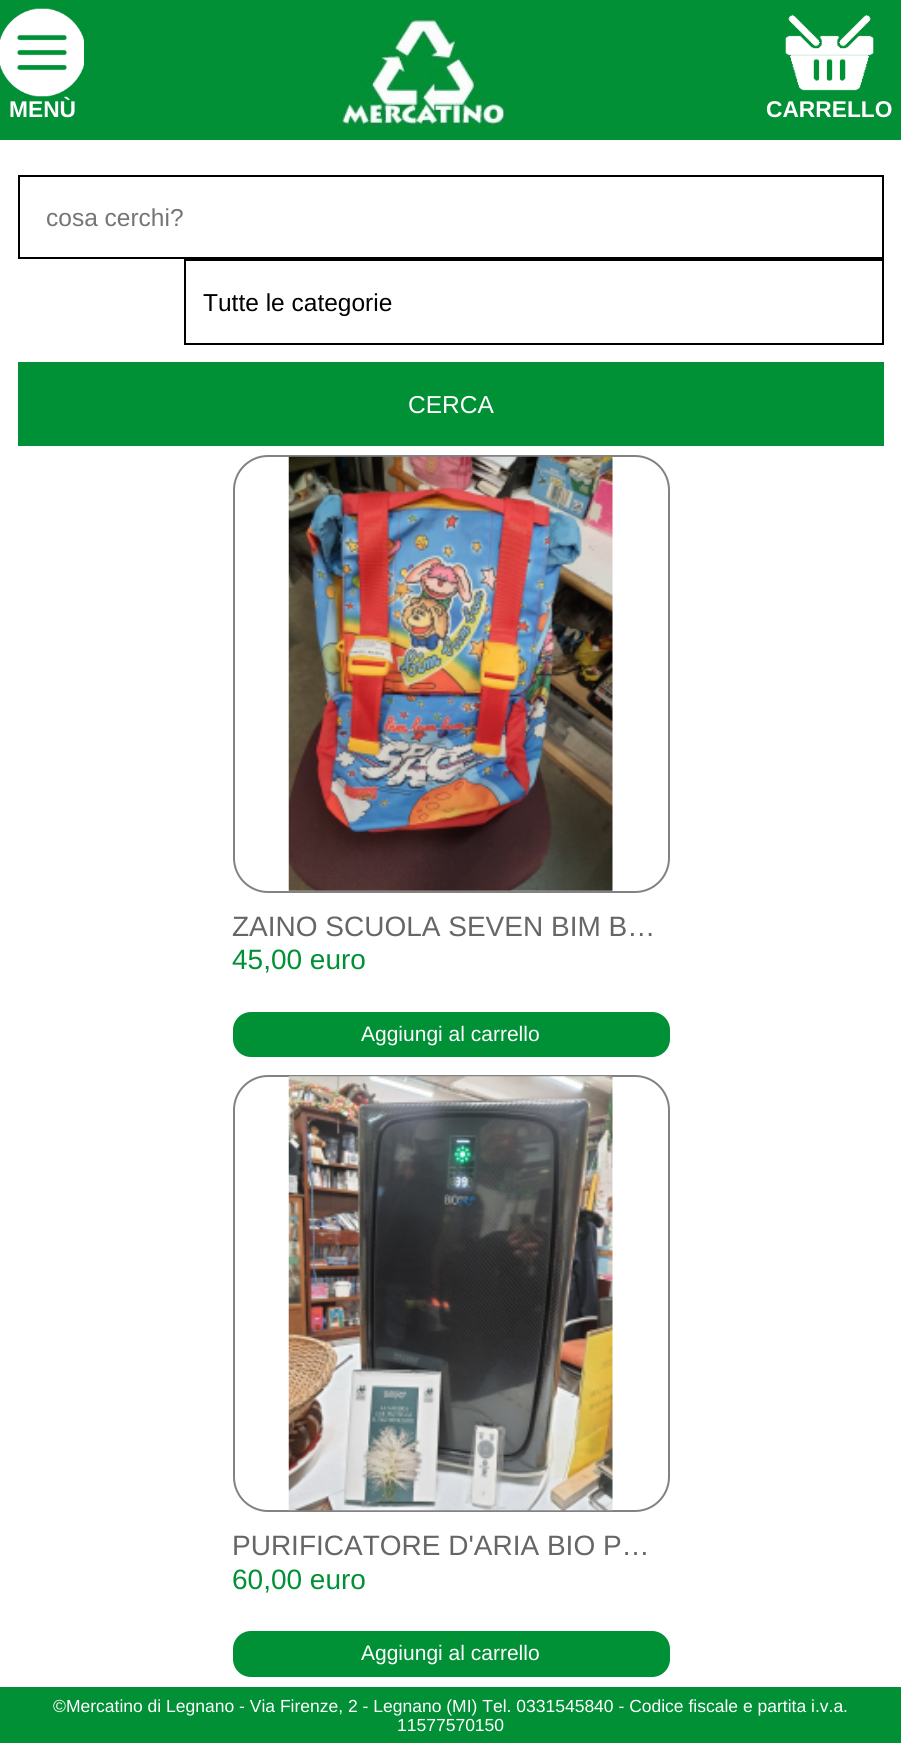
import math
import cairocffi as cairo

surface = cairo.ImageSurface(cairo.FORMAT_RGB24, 901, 1743)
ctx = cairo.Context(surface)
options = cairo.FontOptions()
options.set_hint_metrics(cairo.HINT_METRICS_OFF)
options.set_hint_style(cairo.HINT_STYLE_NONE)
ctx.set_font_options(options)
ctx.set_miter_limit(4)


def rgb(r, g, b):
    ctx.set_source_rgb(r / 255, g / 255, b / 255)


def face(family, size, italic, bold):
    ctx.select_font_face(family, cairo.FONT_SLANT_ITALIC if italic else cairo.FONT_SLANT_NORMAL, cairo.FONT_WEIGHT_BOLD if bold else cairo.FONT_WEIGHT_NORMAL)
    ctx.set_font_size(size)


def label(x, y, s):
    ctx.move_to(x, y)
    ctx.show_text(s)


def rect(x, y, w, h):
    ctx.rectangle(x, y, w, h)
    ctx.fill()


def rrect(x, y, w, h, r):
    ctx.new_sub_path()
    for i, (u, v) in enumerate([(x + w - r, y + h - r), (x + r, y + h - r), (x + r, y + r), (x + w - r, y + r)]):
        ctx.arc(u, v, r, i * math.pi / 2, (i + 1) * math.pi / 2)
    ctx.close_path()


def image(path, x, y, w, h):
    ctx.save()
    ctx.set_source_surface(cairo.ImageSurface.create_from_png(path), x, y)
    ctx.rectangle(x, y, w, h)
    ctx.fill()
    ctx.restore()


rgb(255, 255, 255)
ctx.paint()
rgb(1, 144, 54)
rect(0, 0, 901, 140)
image('image0.png', 0, 8, 84, 89)
face('Liberation Sans', 22.75, 0, 1)
rgb(255, 255, 255)
label(9, 117, 'MENÙ')
image('image1.png', 336, 14, 170, 114)
image('image2.png', 785, 14, 89, 77)
label(766, 117, 'CARRELLO')
ctx.rectangle(19, 176, 864, 82)
rgb(0, 0, 0)
ctx.stroke()
face('Liberation Sans', 24.5, 0, 0)
rgb(117, 117, 117)
label(46, 226, 'cosa cerchi?')
ctx.rectangle(185, 260, 698, 84)
rgb(0, 0, 0)
ctx.stroke()
label(203, 311, 'Tutte le categorie')
rgb(0, 144, 54)
rect(18, 362, 866, 84)
rgb(255, 255, 255)
label(408, 413, 'CERCA')
rrect(234, 456, 435, 436, 34)
rgb(130, 130, 130)
ctx.stroke()
image('image3.png', 288, 456, 325, 435)
face('Liberation Sans', 28, 0, 0)
rgb(102, 102, 102)
label(232, 936, 'ZAINO SCUOLA SEVEN BIM B…')
rgb(0, 144, 54)
label(232, 969, '45,00 euro')
rrect(234, 1013, 435, 43, 17)
ctx.fill_preserve()
ctx.stroke()
face('Liberation Sans', 21, 0, 0)
rgb(255, 255, 255)
label(361, 1041, 'Aggiungi al carrello')
rrect(234, 1076, 435, 435, 34)
rgb(130, 130, 130)
ctx.stroke()
image('image4.png', 288, 1076, 325, 435)
face('Liberation Sans', 28, 0, 0)
rgb(102, 102, 102)
label(232, 1555, 'PURIFICATORE D\'ARIA BIO P…')
rgb(0, 144, 54)
label(232, 1589, '60,00 euro')
rrect(234, 1632, 435, 44, 17)
ctx.fill_preserve()
ctx.stroke()
face('Liberation Sans', 21, 0, 0)
rgb(255, 255, 255)
label(361, 1660, 'Aggiungi al carrello')
rgb(1, 144, 54)
rect(0, 1687, 901, 56)
face('Liberation Sans', 17.5, 0, 0)
rgb(255, 255, 255)
label(53, 1712, '©Mercatino di Legnano - Via Firenze, 2 - Legnano (MI) Tel. 0331545840 - Codice fiscale e partita i.v.a.')
label(397, 1731, '11577570150')
surface.write_to_png('render.png')
